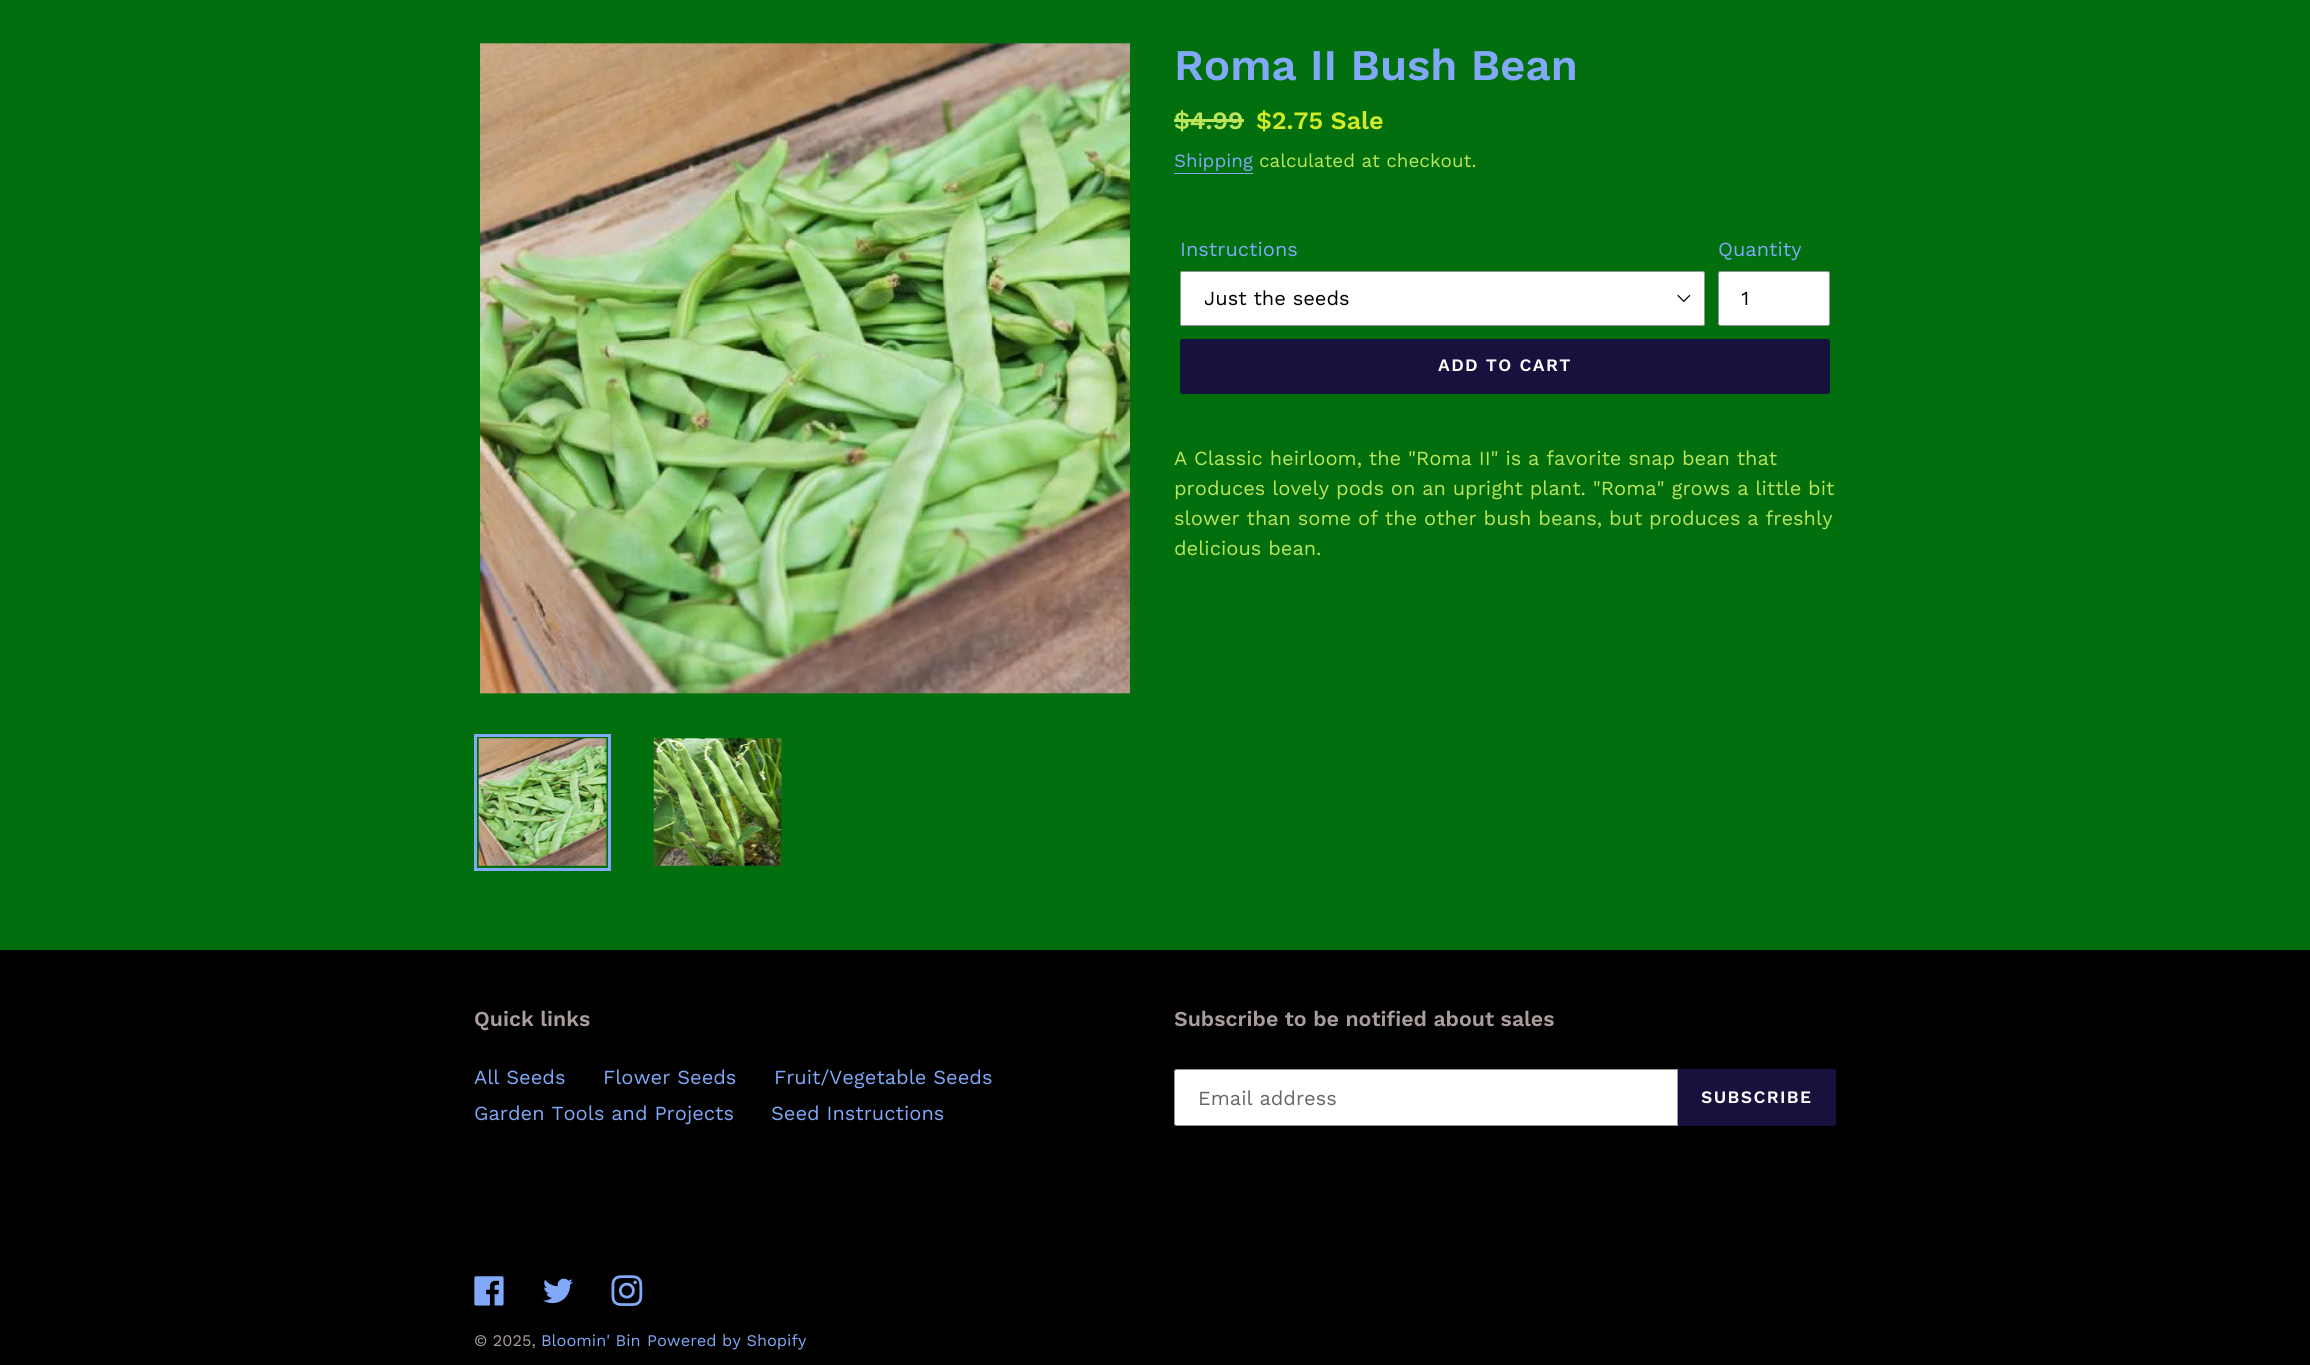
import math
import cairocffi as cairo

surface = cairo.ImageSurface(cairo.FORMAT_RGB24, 2310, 1365)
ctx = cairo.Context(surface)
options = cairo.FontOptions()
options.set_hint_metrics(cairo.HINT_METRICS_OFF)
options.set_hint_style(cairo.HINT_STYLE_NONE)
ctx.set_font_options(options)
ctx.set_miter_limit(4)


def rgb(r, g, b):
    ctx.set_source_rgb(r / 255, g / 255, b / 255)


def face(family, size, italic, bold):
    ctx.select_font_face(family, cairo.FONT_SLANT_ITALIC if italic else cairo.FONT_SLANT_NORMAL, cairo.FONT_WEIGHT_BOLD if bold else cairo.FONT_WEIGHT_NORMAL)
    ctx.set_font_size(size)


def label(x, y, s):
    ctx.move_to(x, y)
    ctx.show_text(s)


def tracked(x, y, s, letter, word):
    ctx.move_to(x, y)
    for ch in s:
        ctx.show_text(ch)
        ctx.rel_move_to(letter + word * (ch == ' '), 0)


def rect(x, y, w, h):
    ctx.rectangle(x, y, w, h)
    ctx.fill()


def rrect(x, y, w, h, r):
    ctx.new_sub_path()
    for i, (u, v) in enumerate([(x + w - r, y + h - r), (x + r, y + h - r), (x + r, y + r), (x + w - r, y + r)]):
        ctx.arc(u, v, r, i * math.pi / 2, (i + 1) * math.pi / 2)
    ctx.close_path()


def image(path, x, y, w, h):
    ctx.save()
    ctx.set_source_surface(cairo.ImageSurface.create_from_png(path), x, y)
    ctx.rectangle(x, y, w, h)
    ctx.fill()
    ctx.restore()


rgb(1, 111, 13)
ctx.paint()
image('image0.png', 480, 43, 650, 651)
ctx.rectangle(475.5, 735.5, 134, 134)
rgb(129, 169, 248)
ctx.set_line_width(3)
ctx.stroke()
image('image1.png', 478, 738, 129, 128)
image('image2.png', 653, 738, 129, 128)
face('Work Sans SemiBold', 43.75, 0, 0)
label(1174, 80, 'Roma II Bush Bean')
face('Work Sans SemiBold', 25, 0, 0)
rgb(188, 230, 90)
label(1174, 129, '$4.99')
rect(1174, 119, 70, 3)
rgb(209, 235, 37)
label(1256, 129, '$2.75 Sale')
face('Work Sans', 18.75, 0, 0)
rgb(129, 169, 248)
label(1174, 167, 'Shipping')
rect(1174, 173, 79, 1)
rgb(188, 230, 90)
label(1259, 167, 'calculated at checkout.')
face('Work Sans', 20, 0, 0)
rgb(129, 169, 248)
label(1180, 256, 'Instructions')
rgb(255, 255, 255)
rrect(1180, 271, 525, 55, 2.5)
ctx.fill()
image('image3.png', 1677, 294, 14, 9)
rrect(1180.5, 271.5, 524, 54, 2)
rgb(148, 148, 148)
ctx.set_line_width(1)
ctx.stroke()
rgb(0, 0, 0)
label(1204, 305, 'Just the seeds')
rgb(129, 169, 248)
label(1718, 256, 'Quantity')
rgb(255, 255, 255)
rrect(1718.5, 271.5, 111, 54, 2)
ctx.fill_preserve()
rgb(148, 148, 148)
ctx.stroke()
rgb(0, 0, 0)
label(1741, 305, '1')
rgb(22, 18, 61)
rrect(1180, 339, 650, 55, 2.5)
ctx.fill()
face('Work Sans SemiBold', 17.5, 0, 0)
rgb(255, 255, 255)
tracked(1438, 371, 'ADD TO CART', 1.4, 0)
face('Work Sans', 20, 0, 0)
rgb(188, 230, 90)
label(1174, 465, 'A Classic heirloom, the "Roma II" is a favorite snap bean that')
label(1174, 495, 'produces lovely pods on an upright plant. "Roma" grows a little bit')
label(1174, 525, 'slower than some of the other bush beans, but produces a freshly')
label(1174, 555, 'delicious bean.')
rgb(0, 0, 0)
rect(0, 950, 2310, 415)
face('Work Sans SemiBold', 21.25, 0, 0)
rgb(171, 157, 157)
label(474, 1026, 'Quick links')
face('Work Sans', 20, 0, 0)
rgb(129, 169, 248)
label(474, 1084, 'All Seeds')
label(603, 1084, 'Flower Seeds')
label(774, 1084, 'Fruit/Vegetable Seeds')
label(474, 1120, 'Garden Tools and Projects')
label(771, 1120, 'Seed Instructions')
face('Work Sans SemiBold', 21.25, 0, 0)
rgb(171, 157, 157)
label(1174, 1026, 'Subscribe to be notified about sales')
rgb(255, 255, 255)
ctx.new_path()
ctx.move_to(1176.5, 1069.5)
ctx.line_to(1677.5, 1069.5)
ctx.line_to(1677.5, 1125.5)
ctx.line_to(1176.5, 1125.5)
ctx.curve_to(1175.5, 1125.5, 1174.5, 1124.5, 1174.5, 1123.5)
ctx.line_to(1174.5, 1071.5)
ctx.curve_to(1174.5, 1070.5, 1175.5, 1069.5, 1176.5, 1069.5)
ctx.close_path()
ctx.fill_preserve()
rgb(148, 148, 148)
ctx.stroke()
face('Work Sans', 20, 0, 0)
rgb(102, 102, 102)
label(1198, 1105, 'Email address')
rgb(22, 18, 61)
ctx.new_path()
ctx.move_to(1678, 1069)
ctx.line_to(1833.5, 1069)
ctx.curve_to(1835, 1069, 1836, 1070, 1836, 1071.5)
ctx.line_to(1836, 1123.5)
ctx.curve_to(1836, 1125, 1835, 1126, 1833.5, 1126)
ctx.line_to(1678, 1126)
ctx.close_path()
ctx.fill()
face('Work Sans SemiBold', 17.5, 0, 0)
rgb(255, 255, 255)
tracked(1701, 1103, 'SUBSCRIBE', 1.4, 0)
image('image4.png', 474, 1276, 30, 30)
image('image5.png', 543, 1278, 30, 26)
image('image6.png', 611, 1275, 32, 31)
face('Work Sans', 16.25, 0, 0)
rgb(171, 157, 157)
label(474, 1346, '© 2025,')
rgb(129, 169, 248)
label(541, 1346, 'Bloomin\' Bin')
label(647, 1346, 'Powered by Shopify')
surface.write_to_png('render.png')
